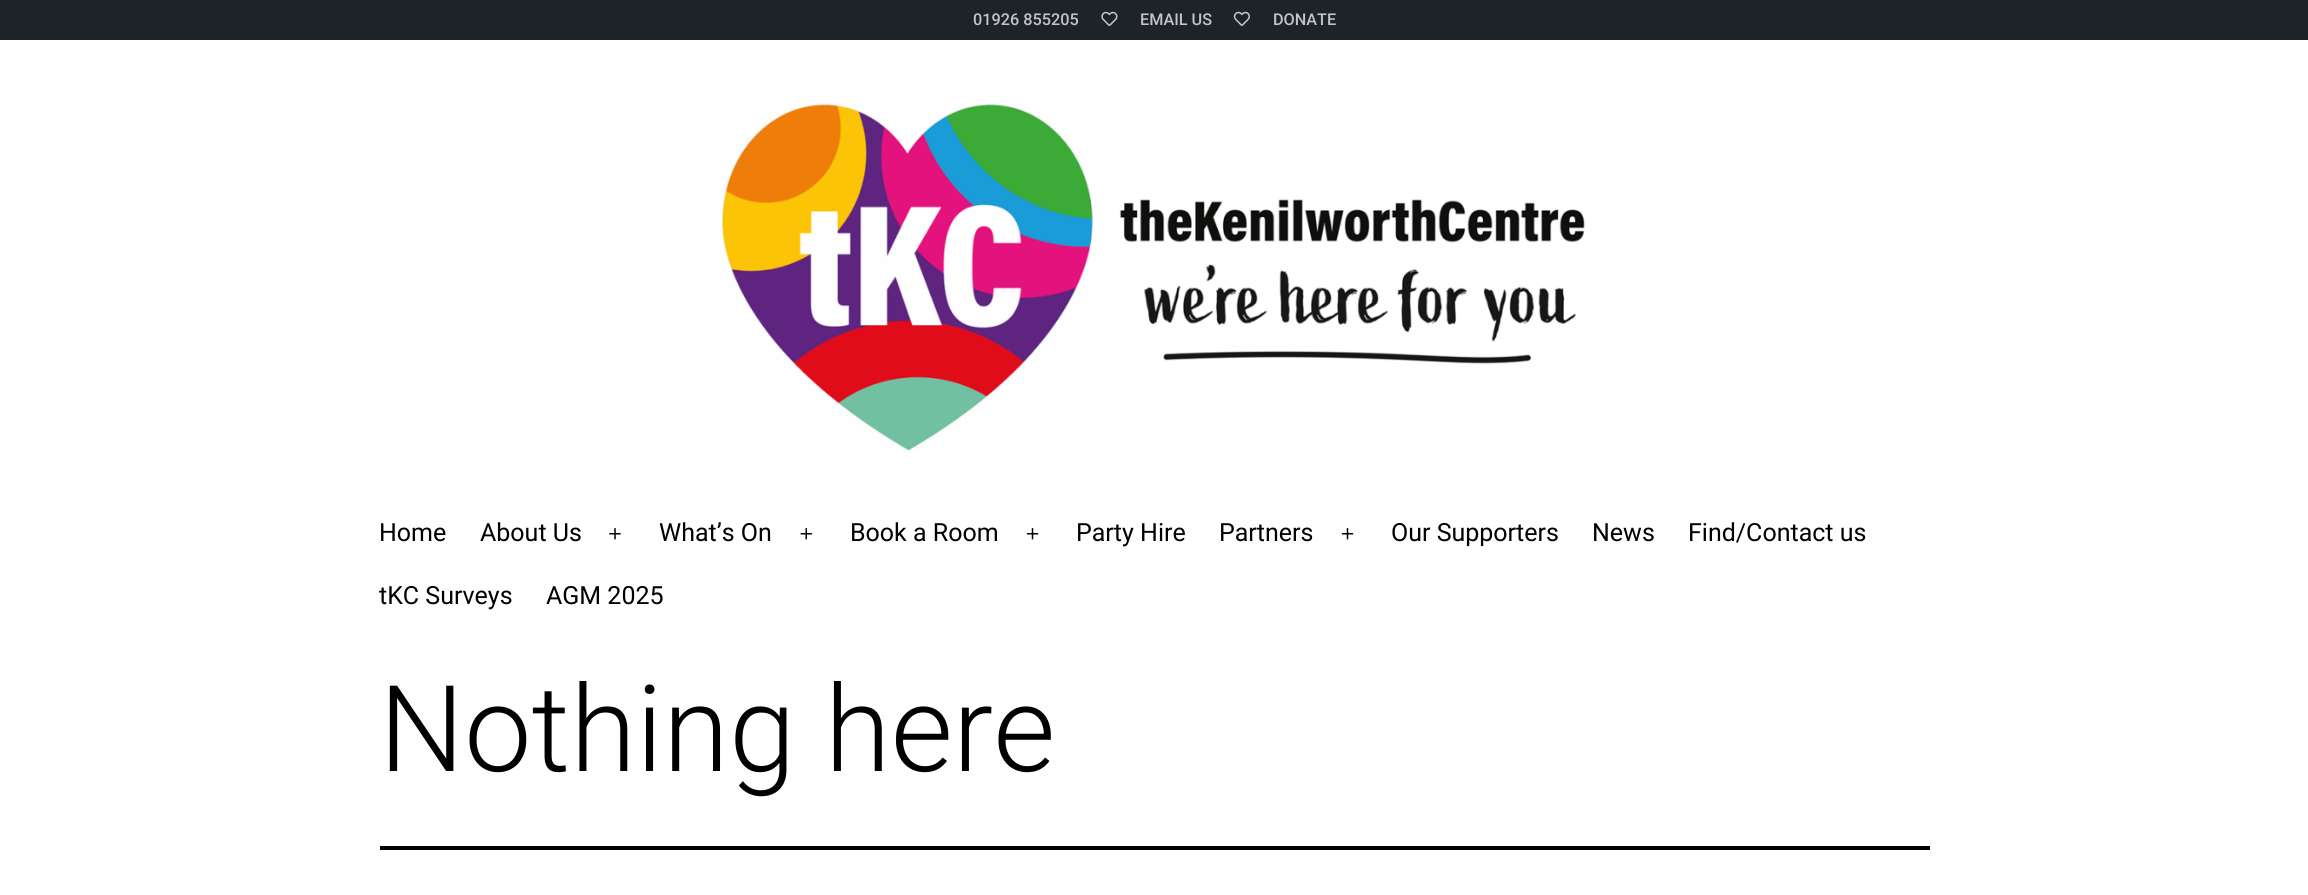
import math
import cairocffi as cairo

surface = cairo.ImageSurface(cairo.FORMAT_RGB24, 2308, 895)
ctx = cairo.Context(surface)
options = cairo.FontOptions()
options.set_hint_metrics(cairo.HINT_METRICS_OFF)
options.set_hint_style(cairo.HINT_STYLE_NONE)
ctx.set_font_options(options)
ctx.set_miter_limit(4)


def rgb(r, g, b):
    ctx.set_source_rgb(r / 255, g / 255, b / 255)


def face(family, size, italic, bold):
    ctx.select_font_face(family, cairo.FONT_SLANT_ITALIC if italic else cairo.FONT_SLANT_NORMAL, cairo.FONT_WEIGHT_BOLD if bold else cairo.FONT_WEIGHT_NORMAL)
    ctx.set_font_size(size)


def label(x, y, s):
    ctx.move_to(x, y)
    ctx.show_text(s)


def rect(x, y, w, h):
    ctx.rectangle(x, y, w, h)
    ctx.fill()


def image(path, x, y, w, h):
    ctx.save()
    ctx.set_source_surface(cairo.ImageSurface.create_from_png(path), x, y)
    ctx.rectangle(x, y, w, h)
    ctx.fill()
    ctx.restore()


rgb(255, 255, 255)
ctx.paint()
rgb(29, 35, 39)
rect(0, 0, 2308, 40)
face('Roboto Medium', 16.25, 0, 0)
rgb(195, 196, 199)
label(973, 25, '01926 855205')
image('image0.png', 1101, 11, 17, 15)
label(1140, 25, 'EMAIL US')
image('image1.png', 1233, 11, 17, 15)
label(1273, 25, 'DONATE')
image('image2.png', 722, 104, 863, 347)
face('Roboto', 25, 0, 0)
rgb(0, 0, 0)
label(379, 541, 'Home')
label(480, 541, 'About Us')
image('image3.png', 609, 528, 12, 12)
label(659, 541, 'What’s On')
image('image4.png', 800, 528, 12, 12)
label(850, 541, 'Book a Room')
image('image5.png', 1026, 528, 13, 12)
label(1076, 541, 'Party Hire')
label(1219, 541, 'Partners')
image('image5.png', 1341, 528, 13, 12)
label(1391, 541, 'Our Supporters')
label(1592, 541, 'News')
label(1688, 541, 'Find/Contact us')
label(379, 604, 'tKC Surveys')
label(546, 604, 'AGM 2025')
rect(380, 846, 1550, 4)
face('Roboto Light', 120, 0, 0)
label(379, 771, 'Nothing here')
surface.write_to_png('render.png')
